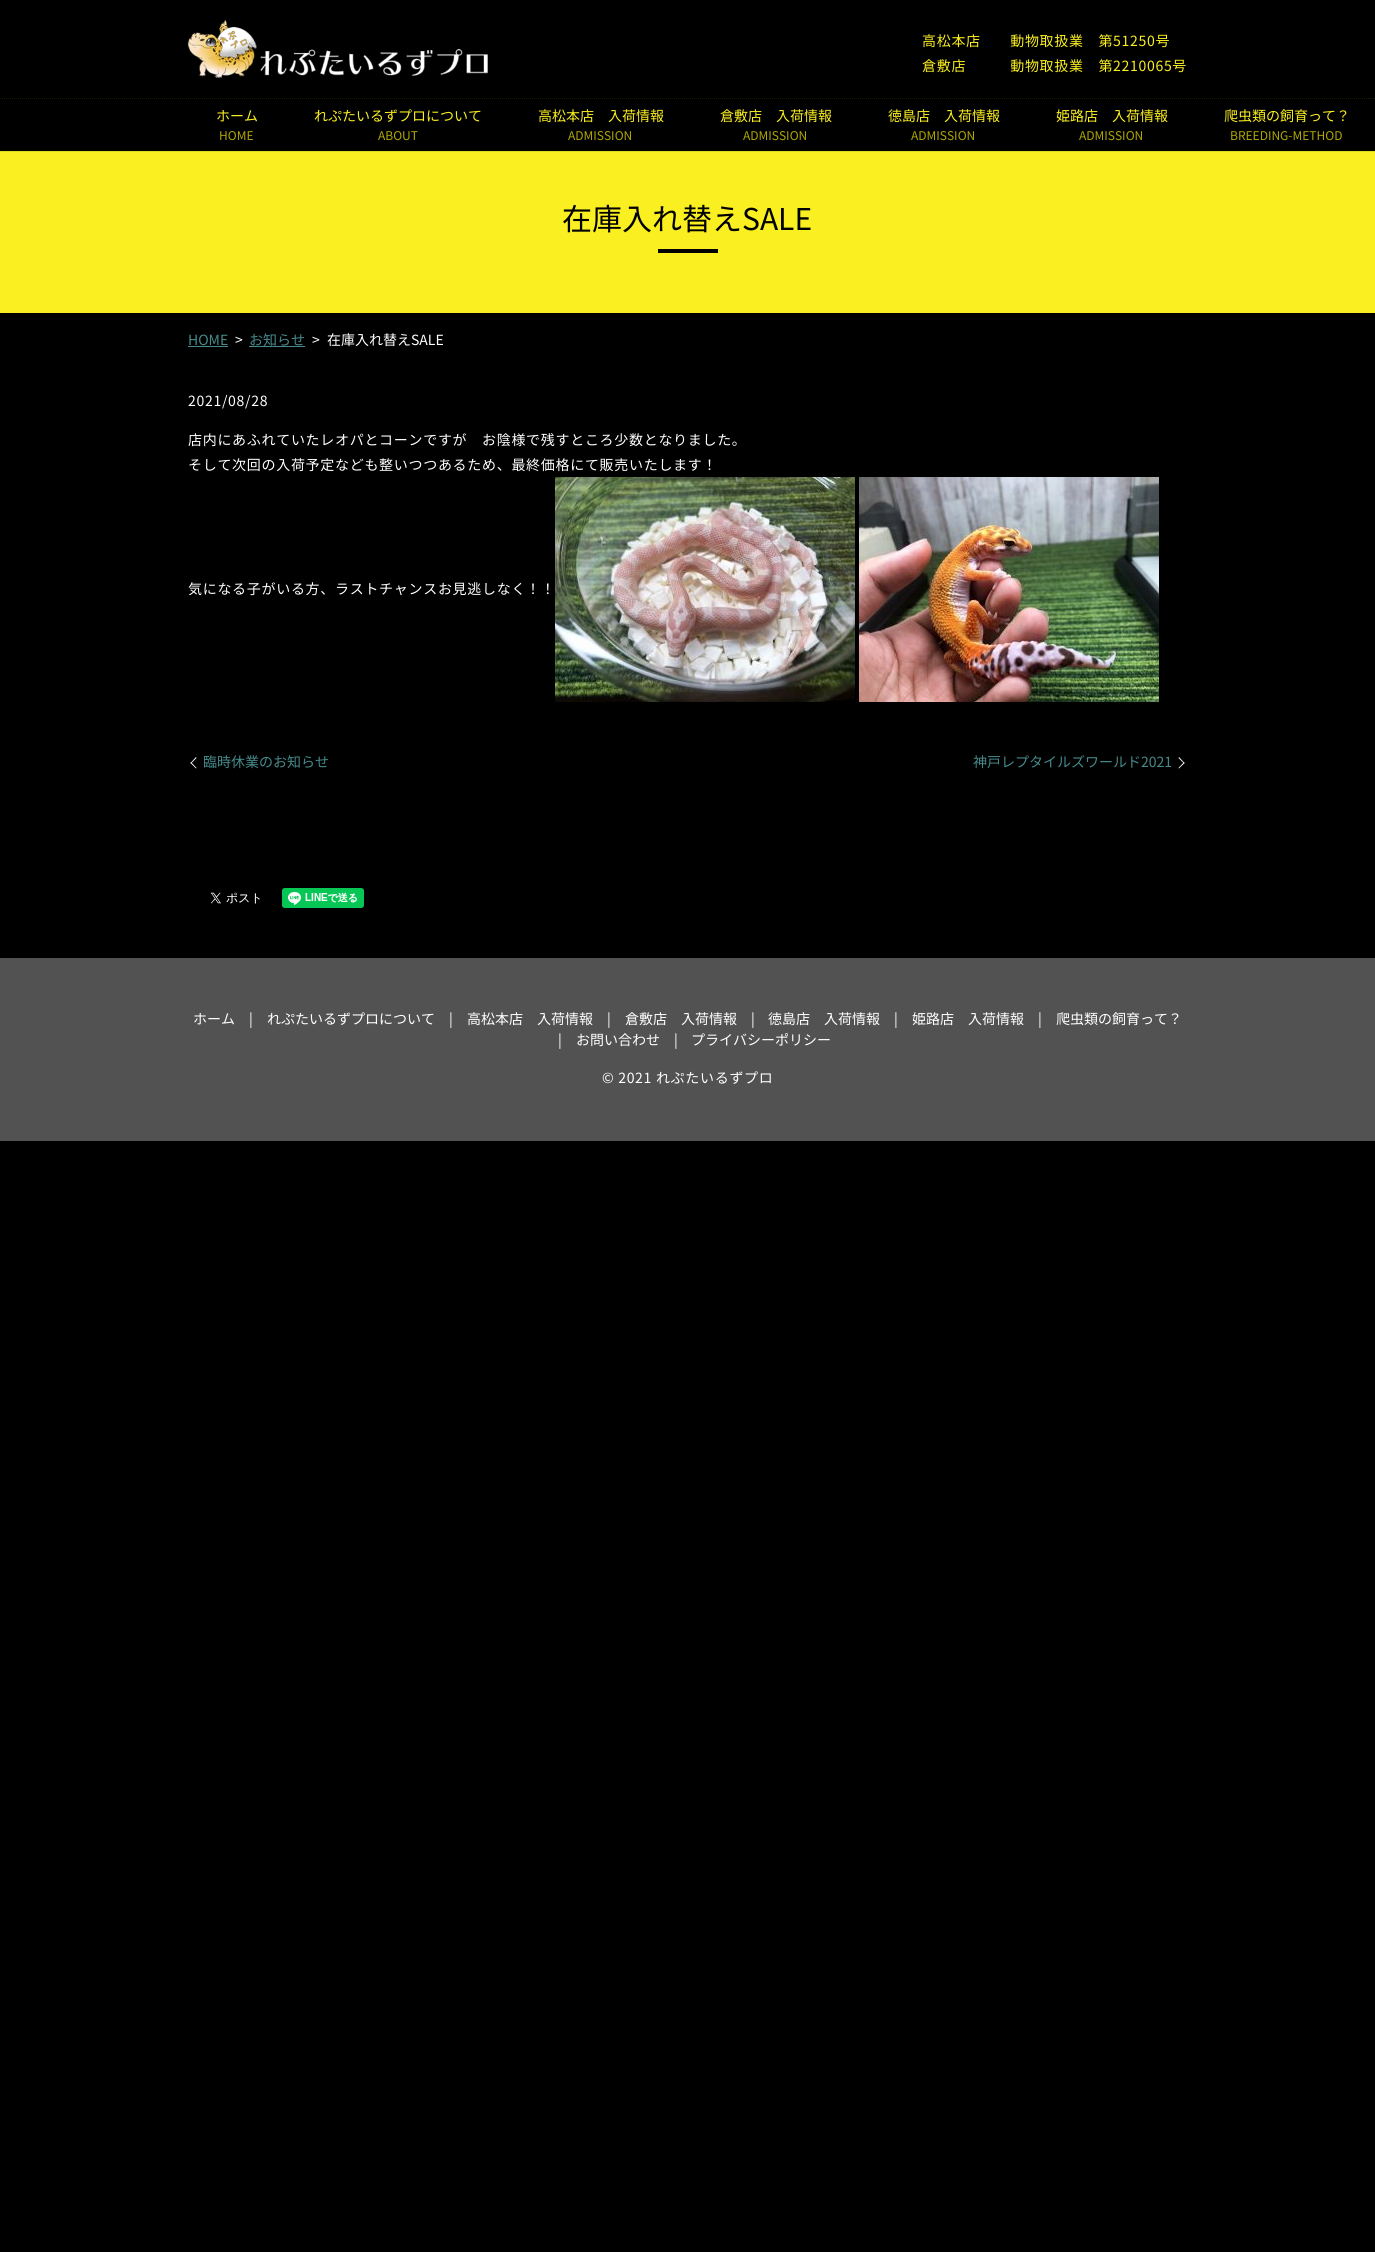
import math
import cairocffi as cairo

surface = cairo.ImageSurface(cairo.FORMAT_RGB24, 1375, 2252)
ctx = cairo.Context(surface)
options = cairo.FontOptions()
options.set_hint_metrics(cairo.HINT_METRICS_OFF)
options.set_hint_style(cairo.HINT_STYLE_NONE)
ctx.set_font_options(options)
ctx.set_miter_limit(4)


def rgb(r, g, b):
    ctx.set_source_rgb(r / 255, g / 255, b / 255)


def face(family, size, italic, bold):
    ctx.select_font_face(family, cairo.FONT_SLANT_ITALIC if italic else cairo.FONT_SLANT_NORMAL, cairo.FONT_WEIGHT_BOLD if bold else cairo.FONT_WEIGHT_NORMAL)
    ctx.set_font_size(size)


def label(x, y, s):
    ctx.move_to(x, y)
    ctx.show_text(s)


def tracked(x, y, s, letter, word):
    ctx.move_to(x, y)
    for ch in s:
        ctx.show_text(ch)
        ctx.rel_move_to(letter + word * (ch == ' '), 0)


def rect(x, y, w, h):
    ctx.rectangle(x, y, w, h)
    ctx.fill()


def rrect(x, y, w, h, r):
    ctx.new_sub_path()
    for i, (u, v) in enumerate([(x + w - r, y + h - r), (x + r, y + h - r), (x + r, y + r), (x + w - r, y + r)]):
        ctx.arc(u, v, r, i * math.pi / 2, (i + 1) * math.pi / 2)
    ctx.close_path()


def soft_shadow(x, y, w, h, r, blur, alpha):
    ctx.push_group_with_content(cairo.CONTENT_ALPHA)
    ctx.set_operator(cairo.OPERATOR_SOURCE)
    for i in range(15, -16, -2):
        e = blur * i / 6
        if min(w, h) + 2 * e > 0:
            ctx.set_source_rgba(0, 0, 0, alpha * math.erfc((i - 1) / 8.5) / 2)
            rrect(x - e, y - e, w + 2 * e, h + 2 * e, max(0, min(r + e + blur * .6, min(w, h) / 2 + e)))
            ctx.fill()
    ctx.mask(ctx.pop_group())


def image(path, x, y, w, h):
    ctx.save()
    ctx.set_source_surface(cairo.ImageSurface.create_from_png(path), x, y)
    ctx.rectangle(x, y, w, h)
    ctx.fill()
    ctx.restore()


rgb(0, 0, 0)
ctx.paint()
rgb(250, 239, 32)
rect(0, 151, 1375, 162)
ctx.save()
ctx.rectangle(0, 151, 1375, 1)
ctx.clip()
rgb(0, 0, 0)
soft_shadow(0, 1, 1375, 151, 0, 0.5, 0.1)
ctx.restore()
image('image0.png', 187, 20, 301, 58)
face('Noto Sans JP', 14, 0, 0)
tracked(922, 46, '高松本店　　動物取扱業　第51250号', 0.7, 0)
tracked(922, 71, '倉敷店　　　動物取扱業　第2210065号', 0.7, 0)
label(216, 121, 'ホーム')
face('Noto Sans JP', 12, 0, 0)
rgb(176, 167, 4)
label(219, 140, 'HOME')
face('Noto Sans JP', 14, 0, 0)
rgb(250, 239, 32)
label(314, 121, 'れぷたいるずプロについて')
face('Noto Sans JP', 12, 0, 0)
rgb(176, 167, 4)
label(378, 140, 'ABOUT')
face('Noto Sans JP', 14, 0, 0)
rgb(250, 239, 32)
label(538, 121, '高松本店　入荷情報')
face('Noto Sans JP', 12, 0, 0)
rgb(176, 167, 4)
label(568, 140, 'ADMISSION')
face('Noto Sans JP', 14, 0, 0)
rgb(250, 239, 32)
label(720, 121, '倉敷店　入荷情報')
face('Noto Sans JP', 12, 0, 0)
rgb(176, 167, 4)
label(743, 140, 'ADMISSION')
face('Noto Sans JP', 14, 0, 0)
rgb(250, 239, 32)
label(888, 121, '徳島店　入荷情報')
face('Noto Sans JP', 12, 0, 0)
rgb(176, 167, 4)
label(911, 140, 'ADMISSION')
face('Noto Sans JP', 14, 0, 0)
rgb(250, 239, 32)
label(1056, 121, '姫路店　入荷情報')
face('Noto Sans JP', 12, 0, 0)
rgb(176, 167, 4)
label(1079, 140, 'ADMISSION')
face('Noto Sans JP', 14, 0, 0)
rgb(250, 239, 32)
label(1224, 121, '爬虫類の飼育って？')
face('Noto Sans JP', 12, 0, 0)
rgb(176, 167, 4)
label(1230, 140, 'BREEDING-METHOD')
ctx.new_path()
ctx.move_to(0, 98.5)
ctx.line_to(1375, 98.5)
rgb(26, 25, 1)
ctx.set_line_width(1)
ctx.set_dash([1, 1])
ctx.stroke()
face('Noto Sans JP', 30, 0, 0)
rgb(0, 0, 0)
label(562, 230, '在庫入れ替えSALE')
rect(658, 249, 60, 4)
face('Noto Sans JP', 14, 0, 0)
rgb(70, 138, 140)
label(188, 345, 'HOME')
rect(188, 346, 40, 1)
rgb(255, 255, 255)
label(235, 345, '>')
rgb(70, 138, 140)
rect(249, 346, 56, 1)
label(249, 345, 'お知らせ')
rgb(255, 255, 255)
label(312, 345, '>')
label(327, 345, '在庫入れ替えSALE')
tracked(188, 406, '2021/08/28', 0.7, 0)
tracked(188, 445, '店内にあふれていたレオパとコーンですが　お陰様で残すところ少数となりました。', 0.7, 0)
tracked(188, 470, 'そして次回の入荷予定なども整いつつあるため、最終価格にて販売いたします！', 0.7, 0)
tracked(188, 594, '気になる子がいる方、ラストチャンスお見逃しなく！！', 0.7, 0)
image('image1.png', 555, 477, 300, 225)
image('image2.png', 859, 477, 300, 225)
ctx.new_path()
ctx.move_to(190.5, 763)
ctx.line_to(196, 757)
ctx.line_to(196.5, 758)
ctx.line_to(191, 763.5)
ctx.close_path()
ctx.fill()
rgb(70, 138, 140)
label(203, 767, '臨時休業のお知らせ')
rgb(255, 255, 255)
ctx.new_path()
ctx.move_to(196, 768.5)
ctx.line_to(190.5, 763)
ctx.line_to(191, 762)
ctx.line_to(196.5, 768)
ctx.close_path()
ctx.fill()
rgb(70, 138, 140)
label(973, 767, '神戸レプタイルズワールド2021')
rgb(255, 255, 255)
ctx.new_path()
ctx.move_to(1179, 757)
ctx.line_to(1184.5, 763)
ctx.line_to(1184, 763.5)
ctx.line_to(1178.5, 758)
ctx.close_path()
ctx.fill()
ctx.new_path()
ctx.move_to(1184.5, 763)
ctx.line_to(1179, 768.5)
ctx.line_to(1178.5, 768)
ctx.line_to(1184, 762)
ctx.close_path()
ctx.fill()
image('image3.png', 210, 892, 50, 12)
image('image4.png', 282, 888, 82, 20)
rgb(82, 82, 82)
rect(0, 958, 1375, 183)
rgb(255, 255, 255)
label(193, 1024, 'ホーム')
label(249, 1024, '|')
label(267, 1024, 'れぷたいるずプロについて')
label(449, 1024, '|')
label(467, 1024, '高松本店　入荷情報')
label(607, 1024, '|')
label(625, 1024, '倉敷店　入荷情報')
label(751, 1024, '|')
label(768, 1024, '徳島店　入荷情報')
label(894, 1024, '|')
label(912, 1024, '姫路店　入荷情報')
label(1038, 1024, '|')
label(1056, 1024, '爬虫類の飼育って？')
label(558, 1045, '|')
label(576, 1045, 'お問い合わせ')
label(674, 1045, '|')
label(691, 1045, 'プライバシーポリシー')
tracked(602, 1083, '© 2021 れぷたいるずプロ', 0.7, 0)
surface.write_to_png('render.png')
